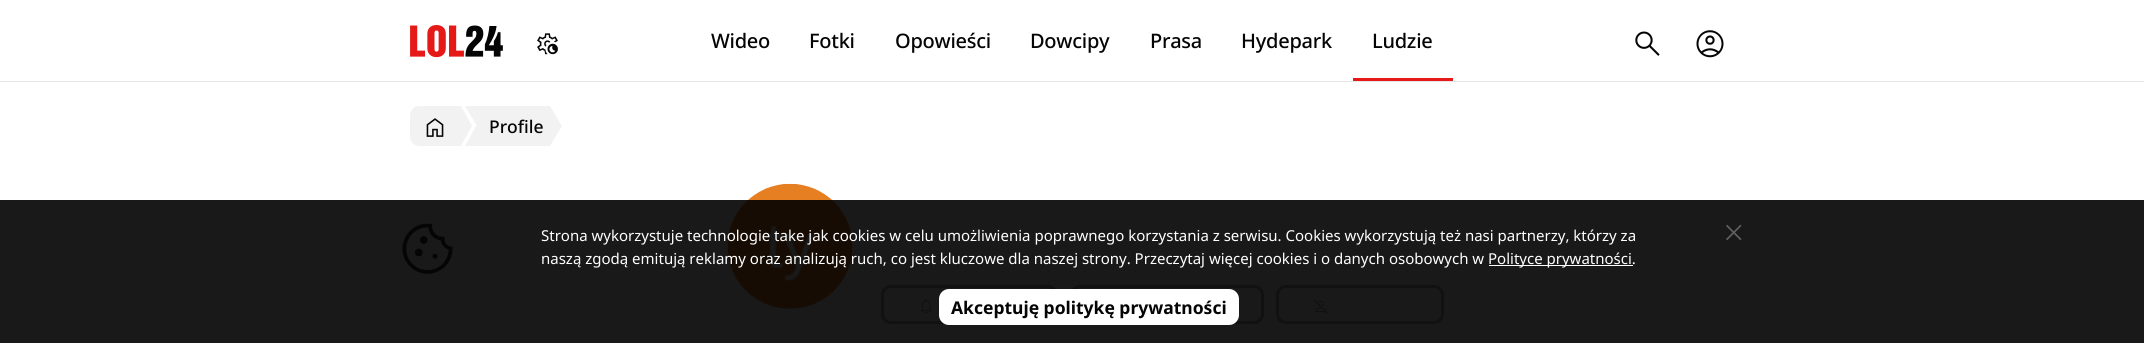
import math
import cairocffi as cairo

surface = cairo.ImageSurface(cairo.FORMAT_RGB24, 2144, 343)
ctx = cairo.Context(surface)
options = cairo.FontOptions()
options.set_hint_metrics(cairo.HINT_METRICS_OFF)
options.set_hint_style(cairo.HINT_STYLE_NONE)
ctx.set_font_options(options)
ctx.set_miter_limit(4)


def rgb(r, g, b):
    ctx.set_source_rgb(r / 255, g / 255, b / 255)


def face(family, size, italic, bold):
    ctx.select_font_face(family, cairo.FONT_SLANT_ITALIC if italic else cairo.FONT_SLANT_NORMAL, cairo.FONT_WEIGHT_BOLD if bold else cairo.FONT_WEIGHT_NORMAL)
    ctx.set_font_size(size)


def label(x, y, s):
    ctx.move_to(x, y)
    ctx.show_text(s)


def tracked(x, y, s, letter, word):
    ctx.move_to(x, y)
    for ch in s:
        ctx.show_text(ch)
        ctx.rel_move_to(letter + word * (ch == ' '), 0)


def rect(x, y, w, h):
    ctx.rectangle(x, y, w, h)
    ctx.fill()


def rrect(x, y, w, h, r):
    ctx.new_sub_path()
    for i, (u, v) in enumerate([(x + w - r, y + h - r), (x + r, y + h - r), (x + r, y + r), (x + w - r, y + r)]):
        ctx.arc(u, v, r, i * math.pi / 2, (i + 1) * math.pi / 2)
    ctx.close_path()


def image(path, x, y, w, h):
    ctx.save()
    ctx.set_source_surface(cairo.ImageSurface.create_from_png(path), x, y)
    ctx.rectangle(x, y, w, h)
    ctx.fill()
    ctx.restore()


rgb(255, 255, 255)
ctx.paint()
rgb(230, 230, 230)
rect(0, 81, 2144, 1)
image('image0.png', 410, 25, 93, 33)
image('image1.png', 537, 33, 21, 22)
face('Noto Sans Medium', 20, 0, 0)
rgb(5, 5, 5)
tracked(711, 48, 'Wideo', -0.25, 0)
tracked(809, 48, 'Fotki', -0.25, 0)
tracked(895, 48, 'Opowieści', -0.25, 0)
tracked(1030, 48, 'Dowcipy', -0.25, 0)
tracked(1150, 48, 'Prasa', -0.25, 0)
tracked(1241, 48, 'Hydepark', -0.25, 0)
tracked(1372, 48, 'Ludzie', -0.25, 0)
rgb(230, 25, 25)
rect(1353, 78, 100, 3)
image('image2.png', 1635, 31, 25, 25)
image('image3.png', 1696, 30, 28, 28)
rgb(242, 242, 242)
ctx.new_path()
ctx.move_to(410, 126)
ctx.line_to(410, 116)
ctx.curve_to(410, 111, 413, 107, 418, 106)
ctx.line_to(461, 106)
ctx.line_to(472, 126)
ctx.close_path()
ctx.move_to(472, 126)
ctx.line_to(461, 146)
ctx.line_to(420, 146)
ctx.curve_to(414, 146, 410, 142, 410, 136)
ctx.line_to(410, 126)
ctx.close_path()
ctx.fill()
image('image4.png', 426, 118, 18, 19)
ctx.new_path()
ctx.move_to(550, 106)
ctx.line_to(465, 106)
ctx.line_to(477, 126)
ctx.line_to(562, 126)
ctx.close_path()
ctx.fill()
ctx.new_path()
ctx.move_to(562, 126)
ctx.line_to(476, 126)
ctx.line_to(465, 146)
ctx.line_to(550, 146)
ctx.close_path()
ctx.fill()
face('Noto Sans Medium', 17.5, 0, 0)
rgb(5, 5, 5)
label(489, 133, 'Profile')
image('image5.png', 727, 183, 126, 126)
rrect(882.5, 286.5, 174, 36, 8.5)
rgb(170, 170, 170)
ctx.set_line_width(3)
ctx.stroke()
image('image6.png', 920, 299, 13, 15)
rrect(1071.5, 286.5, 191, 36, 8.5)
ctx.stroke()
rrect(1277.5, 286.5, 165, 36, 8.5)
ctx.stroke()
image('image7.png', 1313, 299, 15, 15)
ctx.set_source_rgba(0, 0, 0, 0.9)
rect(0, 200, 2144, 143)
image('image8.png', 402, 223, 51, 51)
face('Noto Sans', 15, 0, 0)
rgb(255, 255, 255)
label(541, 241, 'Strona wykorzystuje technologie take jak cookies w celu umożliwienia poprawnego korzystania z serwisu. Cookies wykorzystują też nasi partnerzy, którzy za')
label(541, 264, 'naszą zgodą emitują reklamy oraz analizują ruch, co jest kluczowe dla naszej strony. Przeczytaj więcej cookies i o danych osobowych w')
rect(1489, 265, 144, 1)
label(1488, 264, 'Polityce prywatności.')
rrect(939, 289, 300, 36, 10)
ctx.fill()
face('Noto Sans', 17.5, 0, 1)
rgb(5, 5, 5)
label(951, 314, 'Akceptuję politykę prywatności')
image('image9.png', 1726, 224, 16, 17)
surface.write_to_png('render.png')
